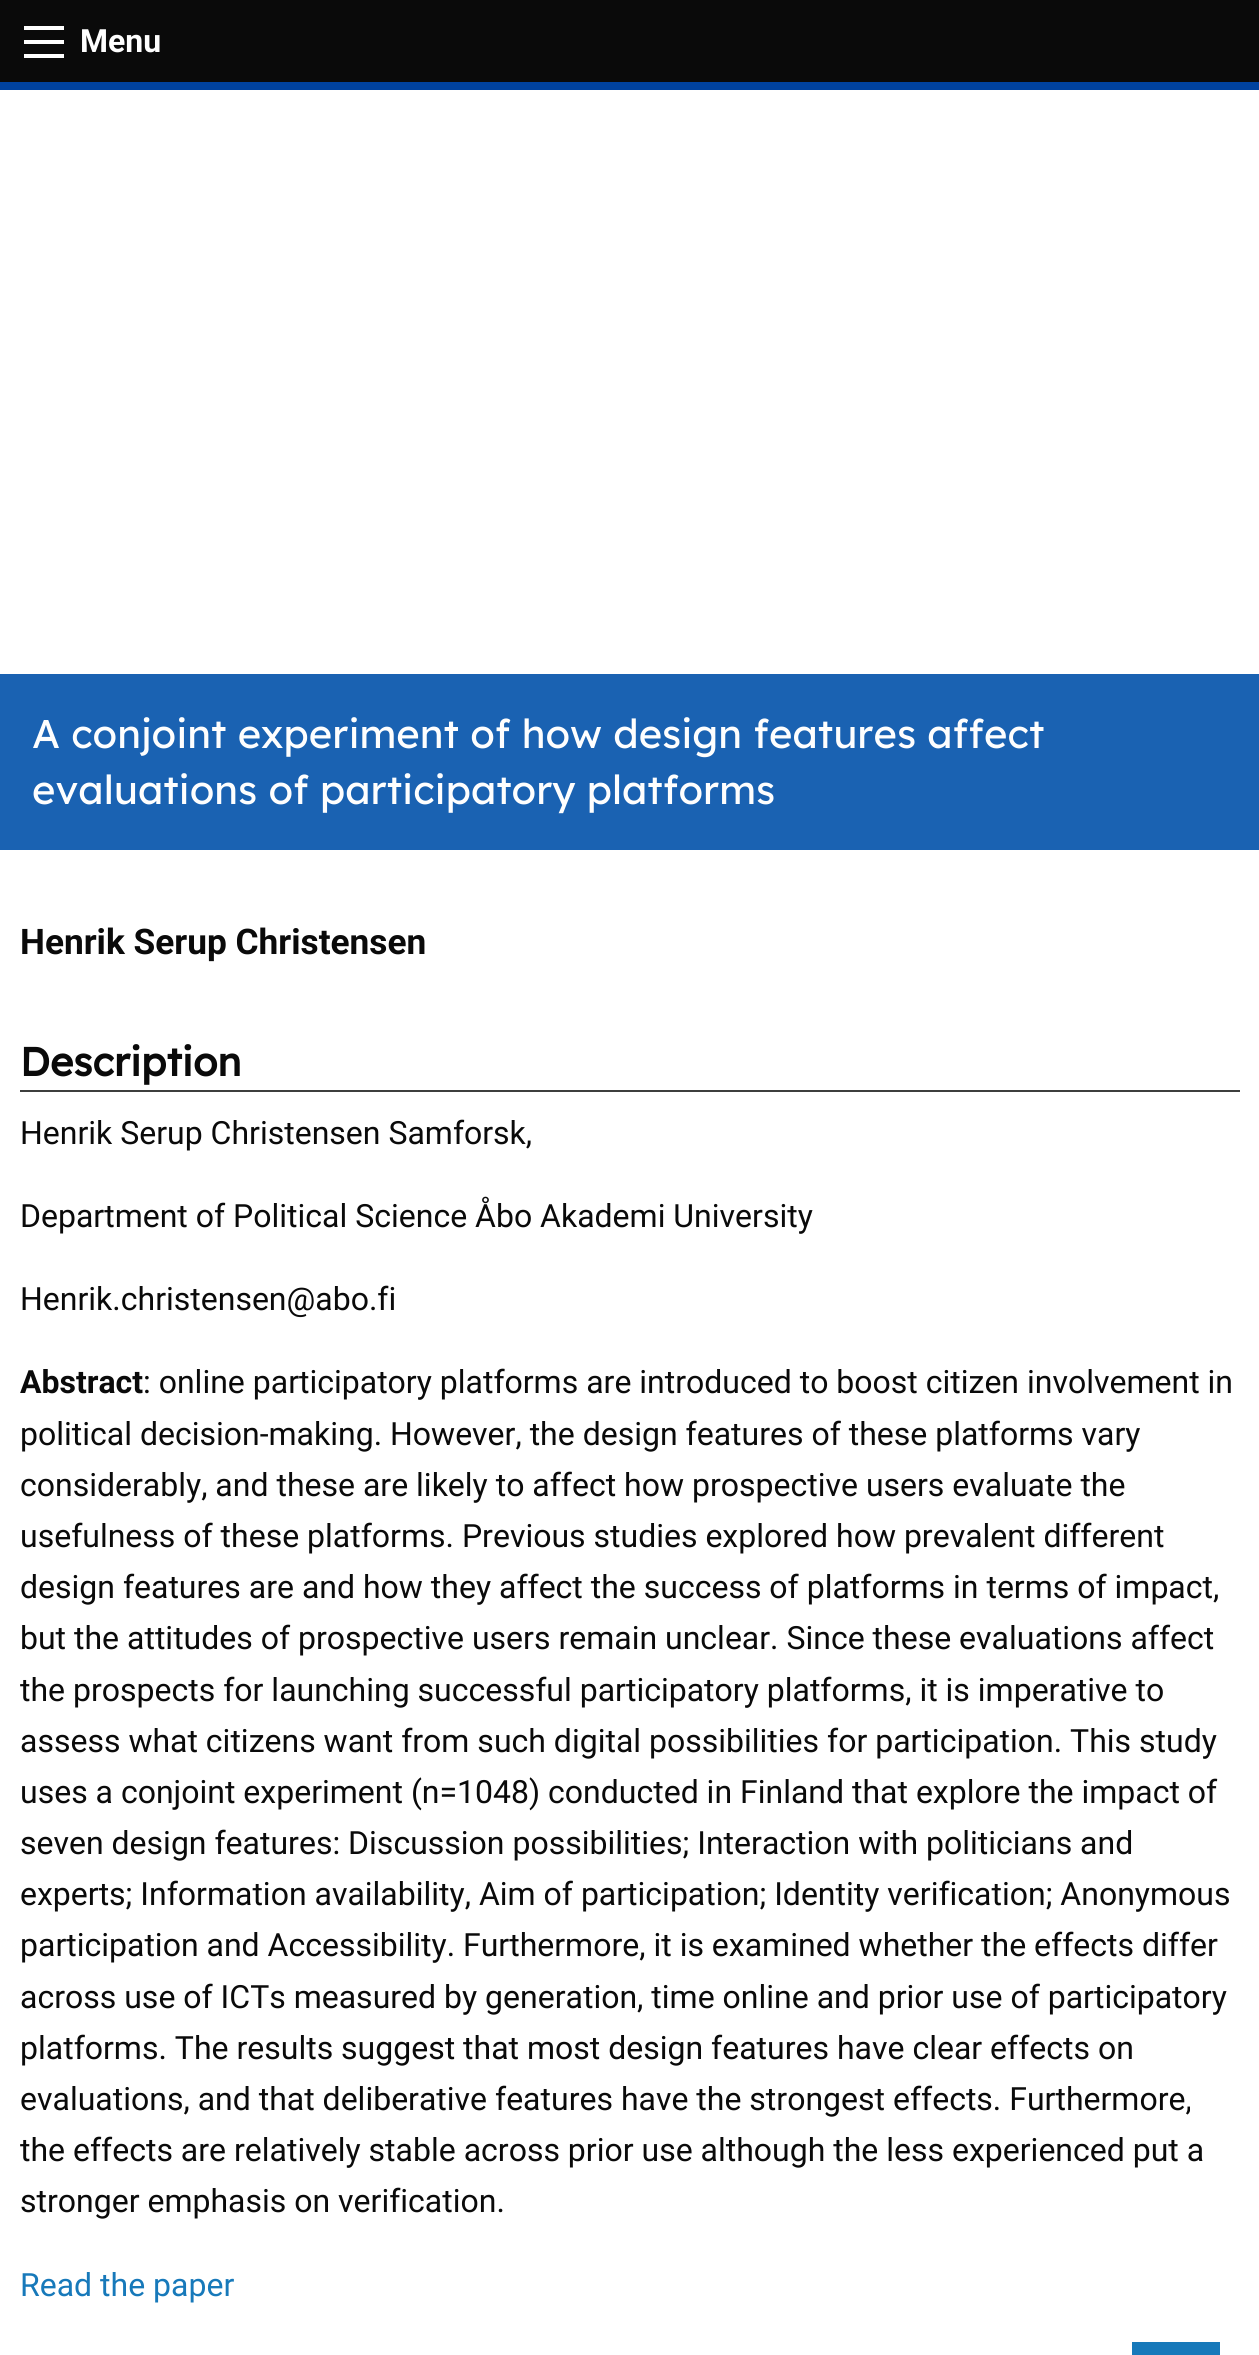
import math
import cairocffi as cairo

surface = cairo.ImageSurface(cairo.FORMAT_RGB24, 1259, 2355)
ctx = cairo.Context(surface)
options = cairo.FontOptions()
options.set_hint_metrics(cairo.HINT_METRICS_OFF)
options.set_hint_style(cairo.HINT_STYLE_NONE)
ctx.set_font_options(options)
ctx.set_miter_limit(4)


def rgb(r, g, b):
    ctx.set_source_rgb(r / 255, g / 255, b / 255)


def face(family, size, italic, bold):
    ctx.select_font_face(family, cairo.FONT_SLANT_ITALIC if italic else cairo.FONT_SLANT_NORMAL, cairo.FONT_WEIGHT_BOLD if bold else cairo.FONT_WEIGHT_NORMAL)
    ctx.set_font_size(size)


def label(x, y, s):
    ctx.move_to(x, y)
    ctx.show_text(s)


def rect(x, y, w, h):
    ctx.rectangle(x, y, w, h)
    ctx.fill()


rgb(255, 255, 255)
ctx.paint()
rgb(10, 10, 10)
rect(0, 0, 1259, 82)
rgb(254, 254, 254)
rect(24, 54, 40, 4)
rect(24, 40, 40, 4)
rect(24, 26, 40, 4)
face('Roboto', 32, 0, 1)
label(80, 52, 'Menu')
rgb(0, 66, 159)
rect(0, 82, 1259, 8)
rgb(26, 98, 178)
rect(0, 674, 1259, 176)
face('Lexend Deca', 40, 0, 0)
rgb(254, 254, 254)
label(32, 748, 'A conjoint experiment of how design features affect')
label(32, 804, 'evaluations of participatory platforms')
face('Roboto', 35.25, 0, 1)
rgb(10, 10, 10)
label(20, 954, 'Henrik Serup Christensen')
rgb(62, 63, 62)
rect(20, 1090, 1220, 2)
face('Lexend Deca', 40, 0, 1)
rgb(10, 10, 10)
label(20, 1076, 'Description')
face('Roboto', 32, 0, 0)
label(20, 1144, 'Henrik Serup Christensen Samforsk,')
label(20, 1227, 'Department of Political Science Åbo Akademi University')
label(20, 1310, 'Henrik.christensen@abo.fi')
face('Roboto', 32, 0, 1)
label(20, 1393, 'Abstract')
face('Roboto', 32, 0, 0)
label(143, 1393, ': online participatory platforms are introduced to boost citizen involvement in')
label(20, 1445, 'political decision-making. However, the design features of these platforms vary')
label(20, 1496, 'considerably, and these are likely to affect how prospective users evaluate the')
label(20, 1547, 'usefulness of these platforms. Previous studies explored how prevalent different')
label(20, 1598, 'design features are and how they affect the success of platforms in terms of impact,')
label(20, 1649, 'but the attitudes of prospective users remain unclear. Since these evaluations affect')
label(20, 1701, 'the prospects for launching successful participatory platforms, it is imperative to')
label(20, 1752, 'assess what citizens want from such digital possibilities for participation. This study')
label(20, 1803, 'uses a conjoint experiment (n=1048) conducted in Finland that explore the impact of')
label(20, 1854, 'seven design features: Discussion possibilities; Interaction with politicians and')
label(20, 1905, 'experts; Information availability, Aim of participation; Identity verification; Anonymous')
label(20, 1956, 'participation and Accessibility. Furthermore, it is examined whether the effects differ')
label(20, 2008, 'across use of ICTs measured by generation, time online and prior use of participatory')
label(20, 2059, 'platforms. The results suggest that most design features have clear effects on')
label(20, 2110, 'evaluations, and that deliberative features have the strongest effects. Furthermore,')
label(20, 2161, 'the effects are relatively stable across prior use although the less experienced put a')
label(20, 2212, 'stronger emphasis on verification.')
rgb(23, 121, 186)
label(20, 2296, 'Read the paper')
rect(1132, 2342, 88, 13)
surface.write_to_png('render.png')
